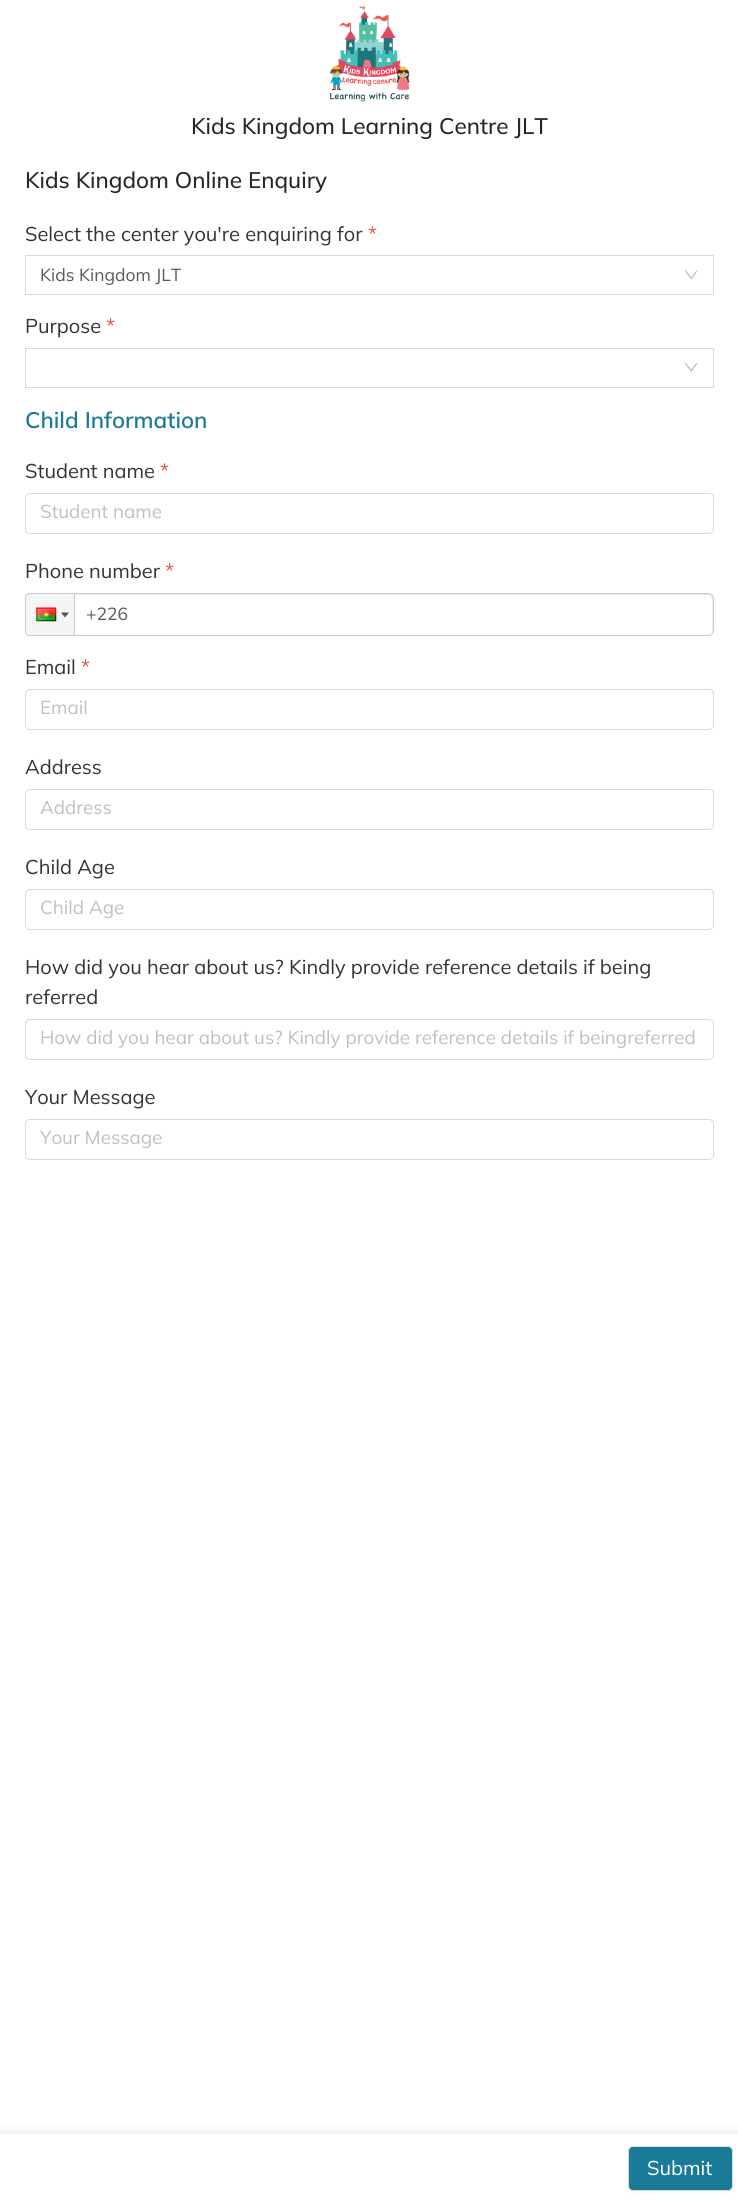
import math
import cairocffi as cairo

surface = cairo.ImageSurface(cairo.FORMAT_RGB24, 738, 2203)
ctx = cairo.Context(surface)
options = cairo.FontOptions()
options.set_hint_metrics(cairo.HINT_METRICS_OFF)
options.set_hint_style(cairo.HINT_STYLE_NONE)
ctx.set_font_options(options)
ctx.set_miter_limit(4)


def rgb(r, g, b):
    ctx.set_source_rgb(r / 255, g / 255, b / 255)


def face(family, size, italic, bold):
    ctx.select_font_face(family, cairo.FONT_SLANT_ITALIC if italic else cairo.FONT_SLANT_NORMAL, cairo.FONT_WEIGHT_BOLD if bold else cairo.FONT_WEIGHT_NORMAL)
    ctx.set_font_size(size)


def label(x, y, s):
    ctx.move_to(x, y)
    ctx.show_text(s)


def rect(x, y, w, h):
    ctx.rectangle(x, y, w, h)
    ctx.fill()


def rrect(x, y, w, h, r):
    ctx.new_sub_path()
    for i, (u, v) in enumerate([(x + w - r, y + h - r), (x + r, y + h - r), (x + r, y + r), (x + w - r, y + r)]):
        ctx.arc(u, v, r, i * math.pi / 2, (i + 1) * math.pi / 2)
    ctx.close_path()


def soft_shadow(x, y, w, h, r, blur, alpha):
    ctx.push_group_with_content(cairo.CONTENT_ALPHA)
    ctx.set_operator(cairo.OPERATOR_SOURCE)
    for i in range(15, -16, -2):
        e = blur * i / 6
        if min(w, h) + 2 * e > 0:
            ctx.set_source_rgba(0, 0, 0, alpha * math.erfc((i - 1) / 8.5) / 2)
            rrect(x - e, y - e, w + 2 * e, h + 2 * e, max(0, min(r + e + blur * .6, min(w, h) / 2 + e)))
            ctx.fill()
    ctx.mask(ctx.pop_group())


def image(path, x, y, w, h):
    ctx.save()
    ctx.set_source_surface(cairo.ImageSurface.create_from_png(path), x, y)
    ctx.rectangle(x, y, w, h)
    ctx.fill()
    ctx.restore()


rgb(246, 251, 255)
ctx.paint()
rgb(255, 255, 255)
rrect(0, 0, 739, 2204, 2.5)
ctx.fill()
image('image0.png', 329, 6, 81, 96)
face('Mulish Medium', 22.5, 0, 0)
rgb(38, 38, 38)
label(191, 134, 'Kids Kingdom Learning Centre JLT')
label(25, 188, 'Kids Kingdom Online Enquiry')
face('Mulish', 20, 0, 0)
rgb(51, 51, 51)
label(25, 241, 'Select the center you\'re enquiring for')
rgb(225, 82, 73)
label(368, 241, '*')
ctx.rectangle(25.5, 255.5, 688, 39)
rgb(217, 217, 217)
ctx.set_line_width(1)
ctx.stroke()
face('Mulish', 17.5, 0, 0)
rgb(89, 89, 89)
label(40, 281, 'Kids Kingdom JLT')
image('image1.png', 685, 270, 13, 10)
face('Mulish', 20, 0, 0)
rgb(51, 51, 51)
label(25, 333, 'Purpose')
rgb(225, 82, 73)
label(106, 333, '*')
ctx.rectangle(25.5, 348.5, 688, 39)
rgb(217, 217, 217)
ctx.stroke()
image('image2.png', 685, 363, 13, 9)
face('Mulish SemiBold', 22.5, 0, 0)
rgb(26, 123, 153)
label(25, 428, 'Child Information')
face('Mulish', 20, 0, 0)
rgb(51, 51, 51)
label(25, 478, 'Student name')
rgb(225, 82, 73)
label(160, 478, '*')
rrect(25.5, 493.5, 688, 40, 4.5)
rgb(217, 217, 217)
ctx.stroke()
face('Mulish', 18.75, 0, 0)
rgb(191, 191, 191)
label(40, 518, 'Student name')
face('Mulish', 20, 0, 0)
rgb(51, 51, 51)
label(25, 578, 'Phone number')
rgb(225, 82, 73)
label(165, 578, '*')
rgb(236, 236, 236)
ctx.new_path()
ctx.move_to(31, 595)
ctx.line_to(708, 595)
ctx.curve_to(710, 595, 712, 597, 712, 600)
ctx.line_to(712, 631)
ctx.line_to(711, 634)
ctx.curve_to(712, 633, 713, 631, 713, 630)
ctx.line_to(713, 599)
ctx.curve_to(713, 596, 711, 594, 708, 594)
ctx.line_to(31, 594)
ctx.curve_to(28, 594, 26, 596, 26, 599)
ctx.line_to(26, 600)
ctx.curve_to(26, 597, 28, 595, 31, 595)
ctx.close_path()
ctx.fill()
rrect(25.5, 593.5, 688, 42, 5.5)
rgb(202, 202, 202)
ctx.stroke()
rgb(245, 245, 245)
ctx.new_path()
ctx.move_to(29, 593.5)
ctx.line_to(74.5, 593.5)
ctx.line_to(74.5, 635.5)
ctx.line_to(29, 635.5)
ctx.curve_to(27, 635.5, 25.5, 634, 25.5, 632)
ctx.line_to(25.5, 597)
ctx.curve_to(25.5, 595, 27, 593.5, 29, 593.5)
ctx.close_path()
ctx.fill_preserve()
rgb(202, 202, 202)
ctx.stroke()
image('image3.png', 36, 607, 21, 15)
rgb(85, 85, 85)
ctx.new_path()
ctx.move_to(61, 612.5)
ctx.line_to(69, 612.5)
ctx.line_to(65, 617.5)
ctx.close_path()
ctx.fill()
face('Mulish', 17.5, 0, 0)
rgb(89, 89, 89)
label(86, 620, '+226')
face('Mulish', 20, 0, 0)
rgb(51, 51, 51)
label(25, 674, 'Email')
rgb(225, 82, 73)
label(81, 674, '*')
rrect(25.5, 689.5, 688, 40, 4.5)
rgb(217, 217, 217)
ctx.stroke()
face('Mulish', 18.75, 0, 0)
rgb(191, 191, 191)
label(40, 714, 'Email')
face('Mulish', 20, 0, 0)
rgb(51, 51, 51)
label(25, 774, 'Address')
rrect(25.5, 789.5, 688, 40, 4.5)
rgb(217, 217, 217)
ctx.stroke()
face('Mulish', 18.75, 0, 0)
rgb(191, 191, 191)
label(40, 814, 'Address')
face('Mulish', 20, 0, 0)
rgb(51, 51, 51)
label(25, 874, 'Child Age')
rrect(25.5, 889.5, 688, 40, 4.5)
rgb(217, 217, 217)
ctx.stroke()
face('Mulish', 18.75, 0, 0)
rgb(191, 191, 191)
label(40, 914, 'Child Age')
face('Mulish', 20, 0, 0)
rgb(51, 51, 51)
label(25, 974, 'How did you hear about us? Kindly provide reference details if being')
label(25, 1004, 'referred')
rrect(25.5, 1019.5, 688, 40, 4.5)
rgb(217, 217, 217)
ctx.stroke()
face('Mulish', 18.75, 0, 0)
rgb(191, 191, 191)
label(40, 1044, 'How did you hear about us? Kindly provide reference details if beingreferred')
face('Mulish', 20, 0, 0)
rgb(51, 51, 51)
label(25, 1104, 'Your Message')
rrect(25.5, 1119.5, 688, 40, 4.5)
rgb(217, 217, 217)
ctx.stroke()
face('Mulish', 18.75, 0, 0)
rgb(191, 191, 191)
label(40, 1144, 'Your Message')
rgb(0, 0, 0)
soft_shadow(0, 2131, 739, 70, 0, 5, 0.08)
rgb(255, 255, 255)
rect(0, 2134, 738, 69)
rgb(251, 251, 251)
ctx.new_path()
ctx.move_to(628, 2188)
ctx.line_to(628, 2189)
ctx.curve_to(628, 2192, 630, 2194, 633, 2194)
ctx.line_to(728, 2194)
ctx.curve_to(731, 2194, 733, 2192, 733, 2189)
ctx.line_to(733, 2154)
ctx.line_to(732, 2152)
ctx.line_to(732, 2186)
ctx.curve_to(732, 2189, 730, 2191, 728, 2191)
ctx.line_to(632, 2191)
ctx.curve_to(631, 2191, 629, 2190, 628, 2188)
ctx.close_path()
ctx.fill()
rgb(26, 123, 153)
rrect(628.5, 2146.5, 104, 44, 4.5)
ctx.fill_preserve()
rgb(217, 217, 217)
ctx.stroke()
face('Mulish', 20, 0, 0)
rgb(255, 255, 255)
label(647, 2175, 'Submit')
surface.write_to_png('render.png')
